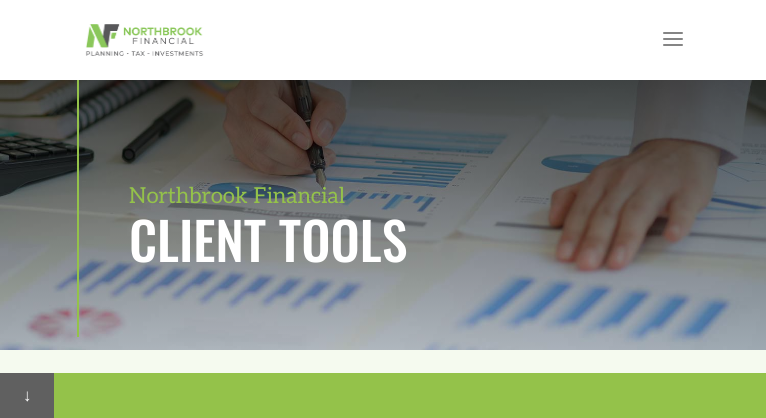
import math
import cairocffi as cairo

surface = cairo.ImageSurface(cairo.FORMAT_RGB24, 766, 418)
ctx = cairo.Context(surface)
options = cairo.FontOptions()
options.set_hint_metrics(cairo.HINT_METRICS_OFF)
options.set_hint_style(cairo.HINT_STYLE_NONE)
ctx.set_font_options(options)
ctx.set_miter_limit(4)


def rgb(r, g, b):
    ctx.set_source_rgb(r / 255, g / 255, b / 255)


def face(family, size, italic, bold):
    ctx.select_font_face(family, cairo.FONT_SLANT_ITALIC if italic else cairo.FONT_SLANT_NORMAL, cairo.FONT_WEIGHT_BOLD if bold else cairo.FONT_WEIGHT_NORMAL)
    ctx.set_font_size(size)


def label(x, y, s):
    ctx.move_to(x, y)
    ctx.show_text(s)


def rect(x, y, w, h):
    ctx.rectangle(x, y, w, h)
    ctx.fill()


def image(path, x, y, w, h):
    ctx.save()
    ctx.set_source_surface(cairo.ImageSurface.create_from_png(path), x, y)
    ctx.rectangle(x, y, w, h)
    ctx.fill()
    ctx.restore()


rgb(255, 255, 255)
ctx.paint()
image('image0.png', 85, 24, 119, 32)
image('image1.png', 663, 32, 20, 14)
image('image2.png', 0, 80, 766, 270)
rgb(148, 194, 74)
rect(77, 80, 2, 257)
face('Aleo', 22, 0, 0)
label(129, 203, 'Northbrook Financial')
face('Oswald Medium', 52, 0, 0)
rgb(255, 255, 255)
label(129, 262, 'CLIENT TOOLS')
rgb(245, 250, 239)
rect(0, 350, 766, 23)
rgb(96, 96, 96)
rect(0, 373, 54, 45)
face('Liberation Serif', 17, 0, 0)
rgb(255, 255, 255)
label(23, 401, '↓')
rgb(148, 194, 74)
rect(54, 373, 712, 45)
surface.write_to_png('render.png')
